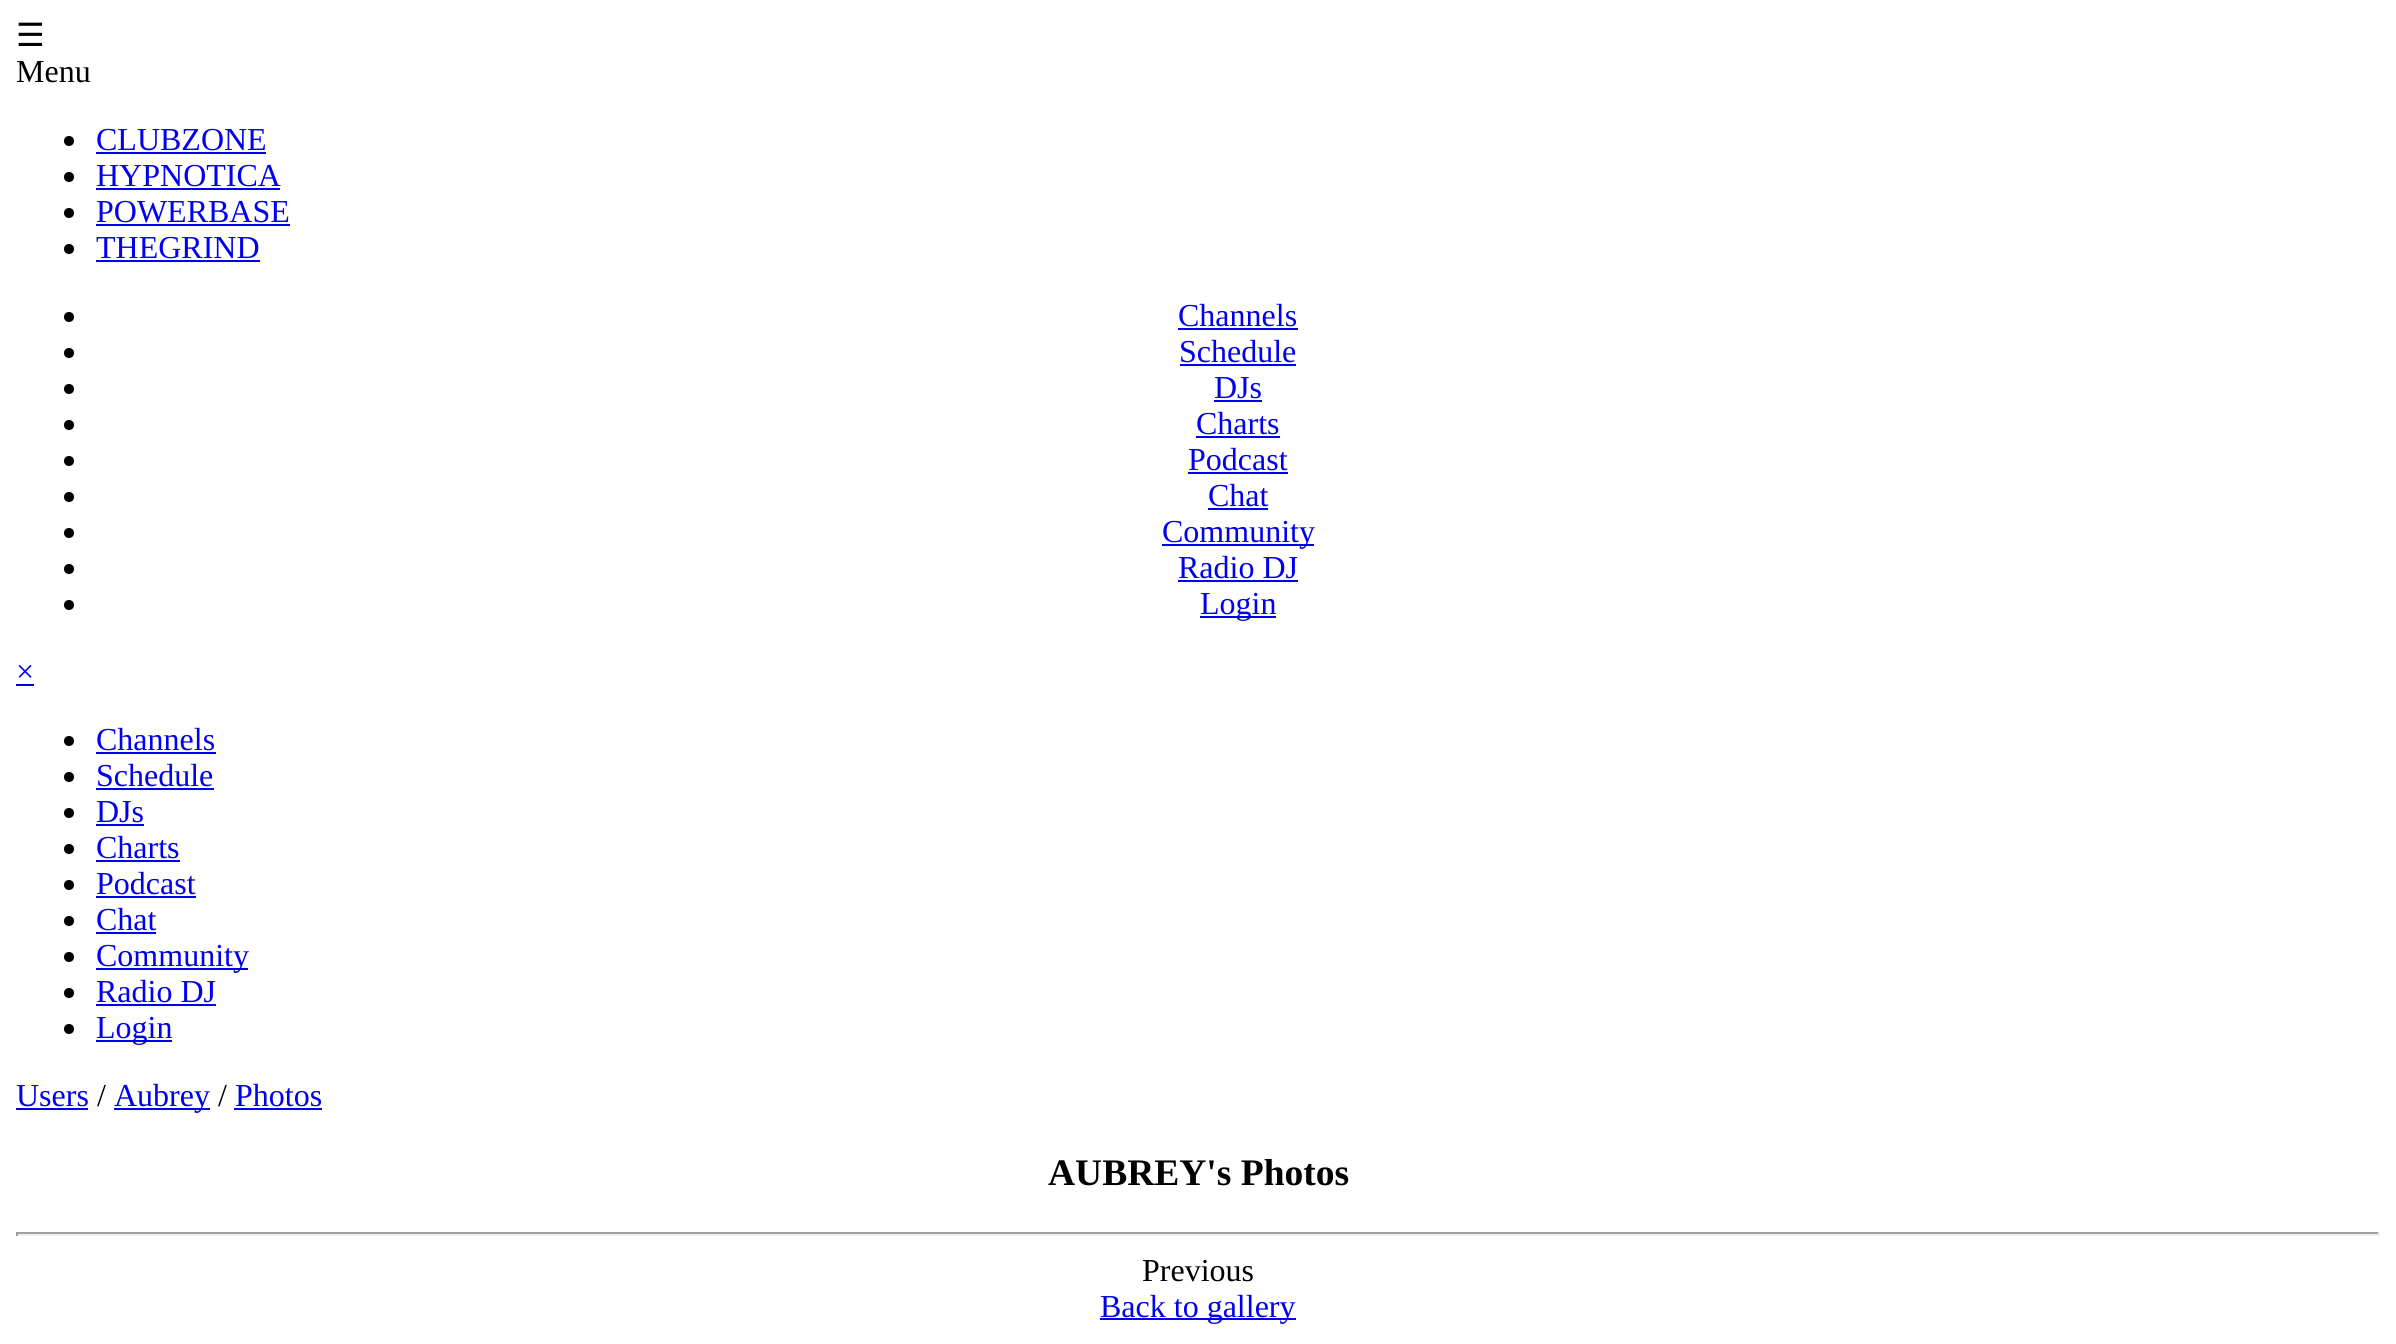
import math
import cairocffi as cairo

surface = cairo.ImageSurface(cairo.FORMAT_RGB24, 2396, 1344)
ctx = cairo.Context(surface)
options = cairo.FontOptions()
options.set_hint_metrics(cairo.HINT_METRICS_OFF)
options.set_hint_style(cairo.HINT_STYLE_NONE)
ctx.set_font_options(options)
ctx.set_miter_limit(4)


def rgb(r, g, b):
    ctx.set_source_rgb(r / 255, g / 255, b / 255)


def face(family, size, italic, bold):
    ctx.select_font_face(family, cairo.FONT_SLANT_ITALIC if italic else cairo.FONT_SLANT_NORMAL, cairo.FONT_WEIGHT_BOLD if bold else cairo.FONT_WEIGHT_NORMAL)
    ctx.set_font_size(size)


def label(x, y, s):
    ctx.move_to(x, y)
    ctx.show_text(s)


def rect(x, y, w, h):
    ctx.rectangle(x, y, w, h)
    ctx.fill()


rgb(255, 255, 255)
ctx.paint()
face('DejaVu Sans', 32, 0, 0)
rgb(0, 0, 0)
label(16, 46, '☰')
face('Liberation Serif', 32, 0, 0)
label(16, 82, 'Menu')
ctx.new_path()
ctx.arc(69, 141, 5, 0, 2 * math.pi)
ctx.fill()
rgb(0, 0, 238)
label(96, 150, 'CLUBZONE')
rect(96, 152, 170, 2)
rgb(0, 0, 0)
ctx.new_path()
ctx.arc(69, 177, 5, 0, 2 * math.pi)
ctx.fill()
rgb(0, 0, 238)
label(96, 186, 'HYPNOTICA')
rect(96, 188, 184, 2)
rgb(0, 0, 0)
ctx.new_path()
ctx.arc(69, 213, 5, 0, 2 * math.pi)
ctx.fill()
rgb(0, 0, 238)
label(96, 222, 'POWERBASE')
rect(96, 224, 194, 2)
rgb(0, 0, 0)
ctx.new_path()
ctx.arc(69, 249, 5, 0, 2 * math.pi)
ctx.fill()
rgb(0, 0, 238)
label(96, 258, 'THEGRIND')
rect(96, 260, 164, 2)
rgb(0, 0, 0)
ctx.new_path()
ctx.arc(69, 317, 5, 0, 2 * math.pi)
ctx.fill()
rgb(0, 0, 238)
label(1178, 326, 'Channels')
rect(1178, 328, 120, 2)
rgb(0, 0, 0)
ctx.new_path()
ctx.arc(69, 353, 5, 0, 2 * math.pi)
ctx.fill()
rgb(0, 0, 238)
label(1179, 362, 'Schedule')
rect(1180, 364, 116, 2)
rgb(0, 0, 0)
ctx.new_path()
ctx.arc(69, 389, 5, 0, 2 * math.pi)
ctx.fill()
rgb(0, 0, 238)
label(1214, 398, 'DJs')
rect(1214, 400, 48, 2)
rgb(0, 0, 0)
ctx.new_path()
ctx.arc(69, 425, 5, 0, 2 * math.pi)
ctx.fill()
rgb(0, 0, 238)
label(1196, 434, 'Charts')
rect(1196, 436, 84, 2)
rgb(0, 0, 0)
ctx.new_path()
ctx.arc(69, 461, 5, 0, 2 * math.pi)
ctx.fill()
rgb(0, 0, 238)
label(1188, 470, 'Podcast')
rect(1188, 472, 100, 2)
rgb(0, 0, 0)
ctx.new_path()
ctx.arc(69, 497, 5, 0, 2 * math.pi)
ctx.fill()
rgb(0, 0, 238)
label(1208, 506, 'Chat')
rect(1208, 508, 60, 2)
rgb(0, 0, 0)
ctx.new_path()
ctx.arc(69, 533, 5, 0, 2 * math.pi)
ctx.fill()
rgb(0, 0, 238)
rect(1162, 544, 152, 2)
label(1162, 542, 'Community')
rgb(0, 0, 0)
ctx.new_path()
ctx.arc(69, 569, 5, 0, 2 * math.pi)
ctx.fill()
rgb(0, 0, 238)
label(1178, 578, 'Radio DJ')
rect(1178, 580, 120, 2)
rgb(0, 0, 0)
ctx.new_path()
ctx.arc(69, 605, 5, 0, 2 * math.pi)
ctx.fill()
rgb(0, 0, 238)
rect(1200, 616, 76, 2)
label(1200, 614, 'Login')
label(16, 682, '×')
rect(16, 684, 18, 2)
rgb(0, 0, 0)
ctx.new_path()
ctx.arc(69, 741, 5, 0, 2 * math.pi)
ctx.fill()
rgb(0, 0, 238)
label(96, 750, 'Channels')
rect(96, 752, 120, 2)
rgb(0, 0, 0)
ctx.new_path()
ctx.arc(69, 777, 5, 0, 2 * math.pi)
ctx.fill()
rgb(0, 0, 238)
label(96, 786, 'Schedule')
rect(96, 788, 118, 2)
rgb(0, 0, 0)
ctx.new_path()
ctx.arc(69, 813, 5, 0, 2 * math.pi)
ctx.fill()
rgb(0, 0, 238)
label(96, 822, 'DJs')
rect(96, 824, 48, 2)
rgb(0, 0, 0)
ctx.new_path()
ctx.arc(69, 849, 5, 0, 2 * math.pi)
ctx.fill()
rgb(0, 0, 238)
label(96, 858, 'Charts')
rect(96, 860, 84, 2)
rgb(0, 0, 0)
ctx.new_path()
ctx.arc(69, 885, 5, 0, 2 * math.pi)
ctx.fill()
rgb(0, 0, 238)
label(96, 894, 'Podcast')
rect(96, 896, 100, 2)
rgb(0, 0, 0)
ctx.new_path()
ctx.arc(69, 921, 5, 0, 2 * math.pi)
ctx.fill()
rgb(0, 0, 238)
label(96, 930, 'Chat')
rect(96, 932, 60, 2)
rgb(0, 0, 0)
ctx.new_path()
ctx.arc(69, 957, 5, 0, 2 * math.pi)
ctx.fill()
rgb(0, 0, 238)
rect(96, 968, 152, 2)
label(96, 966, 'Community')
rgb(0, 0, 0)
ctx.new_path()
ctx.arc(69, 993, 5, 0, 2 * math.pi)
ctx.fill()
rgb(0, 0, 238)
label(96, 1002, 'Radio DJ')
rect(96, 1004, 120, 2)
rgb(0, 0, 0)
ctx.new_path()
ctx.arc(69, 1029, 5, 0, 2 * math.pi)
ctx.fill()
rgb(0, 0, 238)
rect(96, 1040, 76, 2)
label(96, 1038, 'Login')
label(16, 1106, 'Users')
rect(16, 1108, 72, 2)
rgb(0, 0, 0)
label(97, 1106, '/')
rgb(0, 0, 238)
rect(114, 1108, 96, 2)
label(114, 1106, 'Aubrey')
rgb(0, 0, 0)
label(218, 1106, '/')
rgb(0, 0, 238)
label(235, 1106, 'Photos')
rect(234, 1108, 88, 2)
face('Liberation Serif', 37.5, 0, 1)
rgb(0, 0, 0)
label(1048, 1185, 'AUBREY\'s Photos')
rgb(159, 159, 159)
rect(16, 1232, 2364, 2)
rgb(238, 238, 238)
rect(2378, 1232, 2, 4)
rect(16, 1234, 2364, 2)
rgb(159, 159, 159)
rect(16, 1232, 2, 4)
face('Liberation Serif', 32, 0, 0)
rgb(0, 0, 0)
label(1142, 1281, 'Previous')
rgb(0, 0, 238)
rect(1100, 1318, 196, 2)
label(1100, 1317, 'Back to gallery')
surface.write_to_png('render.png')
